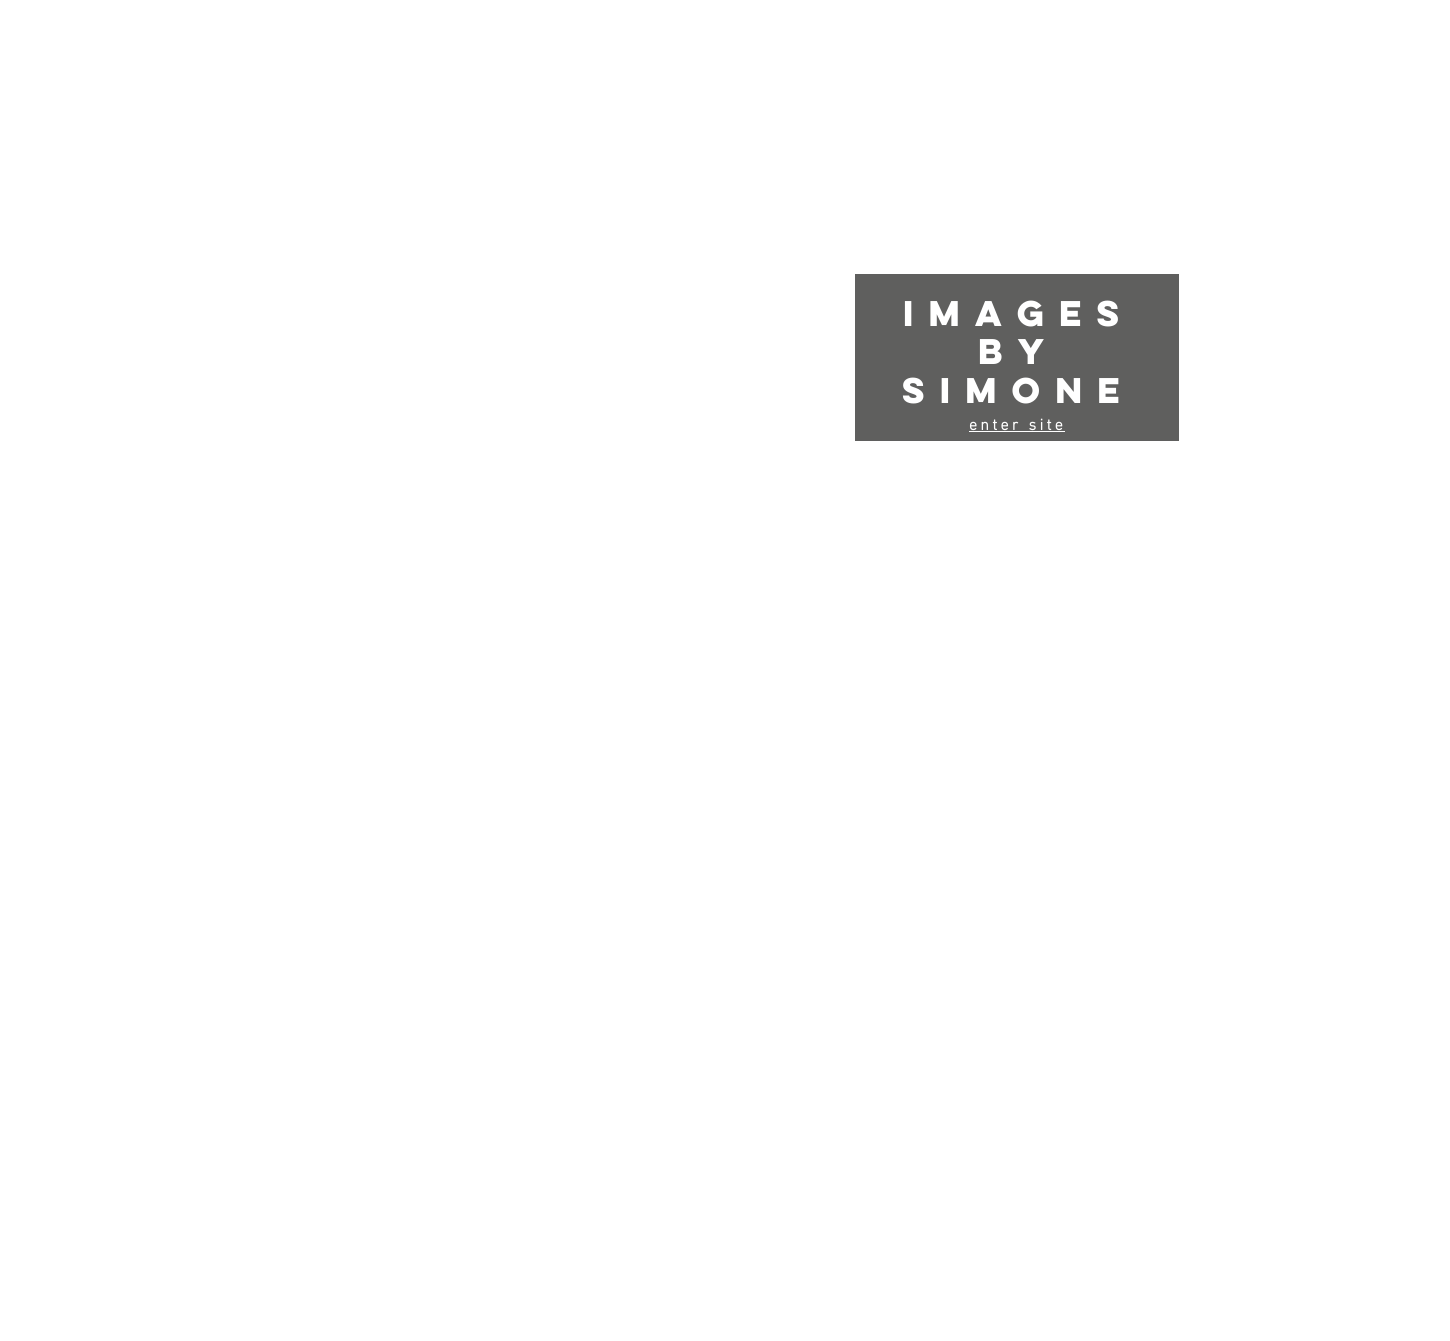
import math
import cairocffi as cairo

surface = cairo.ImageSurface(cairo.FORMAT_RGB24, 1450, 1341)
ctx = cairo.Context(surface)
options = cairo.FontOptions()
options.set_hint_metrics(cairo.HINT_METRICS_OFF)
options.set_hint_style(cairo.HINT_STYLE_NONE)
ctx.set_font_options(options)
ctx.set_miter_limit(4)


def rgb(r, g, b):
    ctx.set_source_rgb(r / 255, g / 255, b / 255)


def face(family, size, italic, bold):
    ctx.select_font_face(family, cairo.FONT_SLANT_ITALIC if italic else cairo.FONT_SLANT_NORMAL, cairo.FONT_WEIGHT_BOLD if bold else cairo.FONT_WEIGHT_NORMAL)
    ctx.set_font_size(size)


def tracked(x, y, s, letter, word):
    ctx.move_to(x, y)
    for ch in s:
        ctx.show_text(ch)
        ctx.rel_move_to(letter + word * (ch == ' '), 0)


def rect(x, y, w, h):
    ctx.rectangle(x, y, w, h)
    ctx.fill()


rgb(255, 255, 255)
ctx.paint()
rgb(95, 95, 94)
rect(855, 274, 324, 167)
face('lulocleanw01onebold', 32, 0, 1)
rgb(255, 255, 255)
tracked(903, 326, 'Images', 8, 0)
tracked(978, 364, 'by', 8, 0)
tracked(902, 403, 'Simone', 8, 0)
face('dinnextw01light', 16, 0, 1)
tracked(969, 430, 'enter site', 3.25, 0)
rect(969, 431, 96, 1)
surface.write_to_png('render.png')
